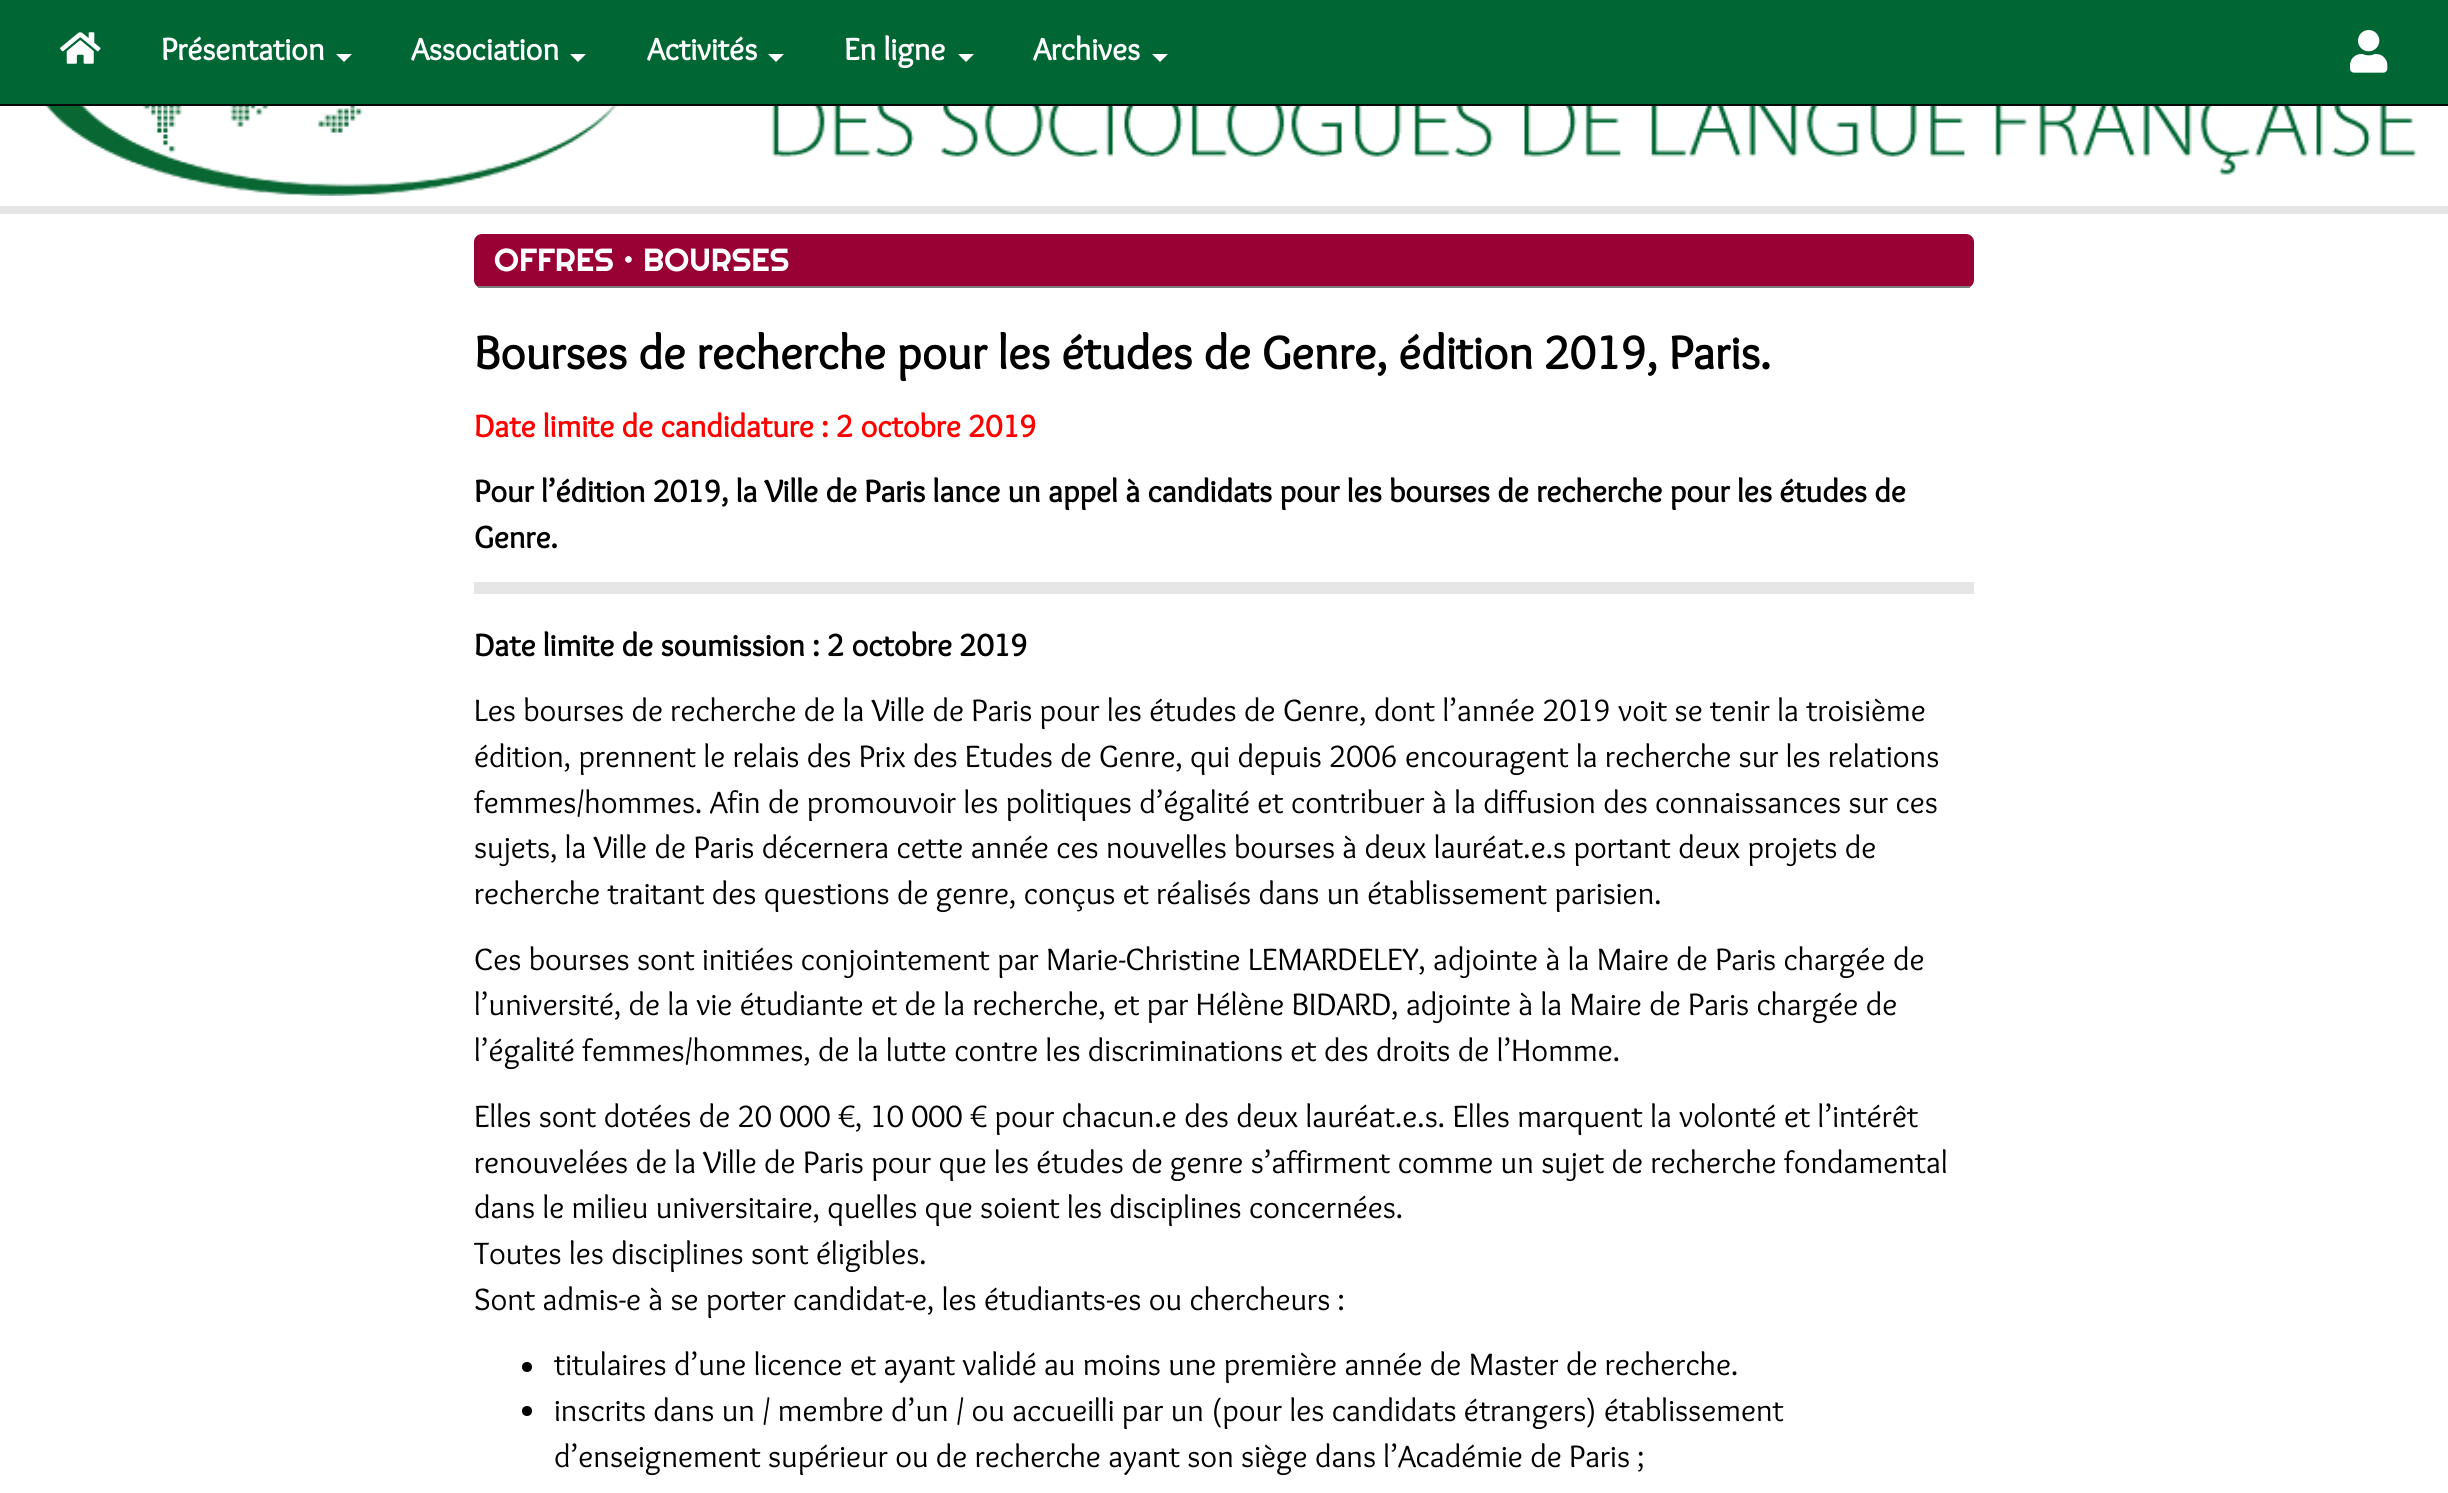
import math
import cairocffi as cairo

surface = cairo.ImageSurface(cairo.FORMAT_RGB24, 2448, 1493)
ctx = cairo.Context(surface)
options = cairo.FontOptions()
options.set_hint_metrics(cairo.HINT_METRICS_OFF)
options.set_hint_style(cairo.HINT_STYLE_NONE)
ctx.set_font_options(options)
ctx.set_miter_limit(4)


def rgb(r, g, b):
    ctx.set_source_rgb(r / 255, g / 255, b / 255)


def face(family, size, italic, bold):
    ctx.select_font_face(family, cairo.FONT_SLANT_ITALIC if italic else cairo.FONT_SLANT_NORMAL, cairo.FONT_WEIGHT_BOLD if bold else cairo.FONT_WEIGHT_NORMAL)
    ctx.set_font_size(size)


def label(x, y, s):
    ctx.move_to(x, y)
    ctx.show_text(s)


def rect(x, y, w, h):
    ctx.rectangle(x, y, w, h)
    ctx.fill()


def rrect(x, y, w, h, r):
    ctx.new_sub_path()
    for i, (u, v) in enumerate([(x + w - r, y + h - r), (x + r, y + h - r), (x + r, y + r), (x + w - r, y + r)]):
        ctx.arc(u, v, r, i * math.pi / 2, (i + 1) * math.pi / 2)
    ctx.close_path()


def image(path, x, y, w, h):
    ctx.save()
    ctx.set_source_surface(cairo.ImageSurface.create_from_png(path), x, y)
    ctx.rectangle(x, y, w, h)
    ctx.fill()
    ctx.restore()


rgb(255, 255, 255)
ctx.paint()
rgb(0, 102, 51)
rect(0, 0, 2448, 104)
rgb(8, 8, 8)
rect(0, 104, 2448, 2)
image('image0.png', 60, 32, 41, 32)
face('Overlock', 32, 0, 1)
rgb(255, 255, 255)
label(161, 60, 'Présentation')
ctx.new_path()
ctx.move_to(336, 54)
ctx.line_to(352, 54)
ctx.line_to(344, 62)
ctx.close_path()
ctx.fill()
label(411, 60, 'Association')
ctx.new_path()
ctx.move_to(570, 54)
ctx.line_to(586, 54)
ctx.line_to(578, 62)
ctx.close_path()
ctx.fill()
label(647, 60, 'Activités')
ctx.new_path()
ctx.move_to(768, 54)
ctx.line_to(784, 54)
ctx.line_to(776, 62)
ctx.close_path()
ctx.fill()
label(844, 60, 'En ligne')
ctx.new_path()
ctx.move_to(958, 54)
ctx.line_to(974, 54)
ctx.line_to(966, 62)
ctx.close_path()
ctx.fill()
label(1033, 60, 'Archives')
ctx.new_path()
ctx.move_to(1152, 54)
ctx.line_to(1168, 54)
ctx.line_to(1160, 62)
ctx.close_path()
ctx.fill()
image('image1.png', 2350, 30, 38, 43)
image('image2.png', 45, 106, 2372, 90)
rgb(230, 230, 230)
rect(0, 206, 2448, 8)
rgb(153, 0, 51)
rrect(474, 234, 1500, 54, 8)
ctx.fill()
rgb(125, 125, 125)
rect(478, 286, 1492, 2)
face('Righteous', 32, 0, 0)
rgb(255, 255, 255)
label(494, 271, 'OFFRES • BOURSES')
face('Overlock', 48, 0, 1)
rgb(0, 0, 0)
label(474, 369, 'Bourses de recherche pour les études de Genre, édition 2019, Paris.')
face('Overlock', 32, 0, 1)
rgb(255, 0, 0)
label(474, 437, 'Date limite de candidature : 2 octobre 2019')
rgb(0, 0, 0)
label(474, 502, 'Pour l’édition 2019, la Ville de Paris lance un appel à candidats pour les bourses de recherche pour les études de')
label(474, 548, 'Genre.')
rgb(230, 230, 230)
rect(474, 582, 1500, 12)
rgb(0, 0, 0)
label(474, 656, 'Date limite de soumission : 2 octobre 2019')
face('Overlock', 32, 0, 0)
label(474, 721, 'Les bourses de recherche de la Ville de Paris pour les études de Genre, dont l’année 2019 voit se tenir la troisième')
label(474, 767, 'édition, prennent le relais des Prix des Etudes de Genre, qui depuis 2006 encouragent la recherche sur les relations')
label(474, 813, 'femmes/hommes. Afin de promouvoir les politiques d’égalité et contribuer à la diffusion des connaissances sur ces')
label(474, 858, 'sujets, la Ville de Paris décernera cette année ces nouvelles bourses à deux lauréat.e.s portant deux projets de')
label(474, 904, 'recherche traitant des questions de genre, conçus et réalisés dans un établissement parisien.')
label(474, 970, 'Ces bourses sont initiées conjointement par Marie-Christine LEMARDELEY, adjointe à la Maire de Paris chargée de')
label(474, 1015, 'l’université, de la vie étudiante et de la recherche, et par Hélène BIDARD, adjointe à la Maire de Paris chargée de')
label(474, 1061, 'l’égalité femmes/hommes, de la lutte contre les discriminations et des droits de l’Homme.')
label(474, 1127, 'Elles sont dotées de 20 000 €, 10 000 € pour chacun.e des deux lauréat.e.s. Elles marquent la volonté et l’intérêt')
label(474, 1173, 'renouvelées de la Ville de Paris pour que les études de genre s’affirment comme un sujet de recherche fondamental')
label(474, 1218, 'dans le milieu universitaire, quelles que soient les disciplines concernées.')
label(474, 1264, 'Toutes les disciplines sont éligibles.')
label(474, 1310, 'Sont admis-e à se porter candidat-e, les étudiants-es ou chercheurs :')
ctx.new_path()
ctx.arc(527, 1367, 5, 0, 2 * math.pi)
ctx.fill()
label(554, 1375, 'titulaires d’une licence et ayant validé au moins une première année de Master de recherche.')
ctx.new_path()
ctx.arc(527, 1411, 5, 0, 2 * math.pi)
ctx.fill()
label(554, 1421, 'inscrits dans un / membre d’un / ou accueilli par un (pour les candidats étrangers) établissement')
label(554, 1467, 'd’enseignement supérieur ou de recherche ayant son siège dans l’Académie de Paris ;')
surface.write_to_png('render.png')
